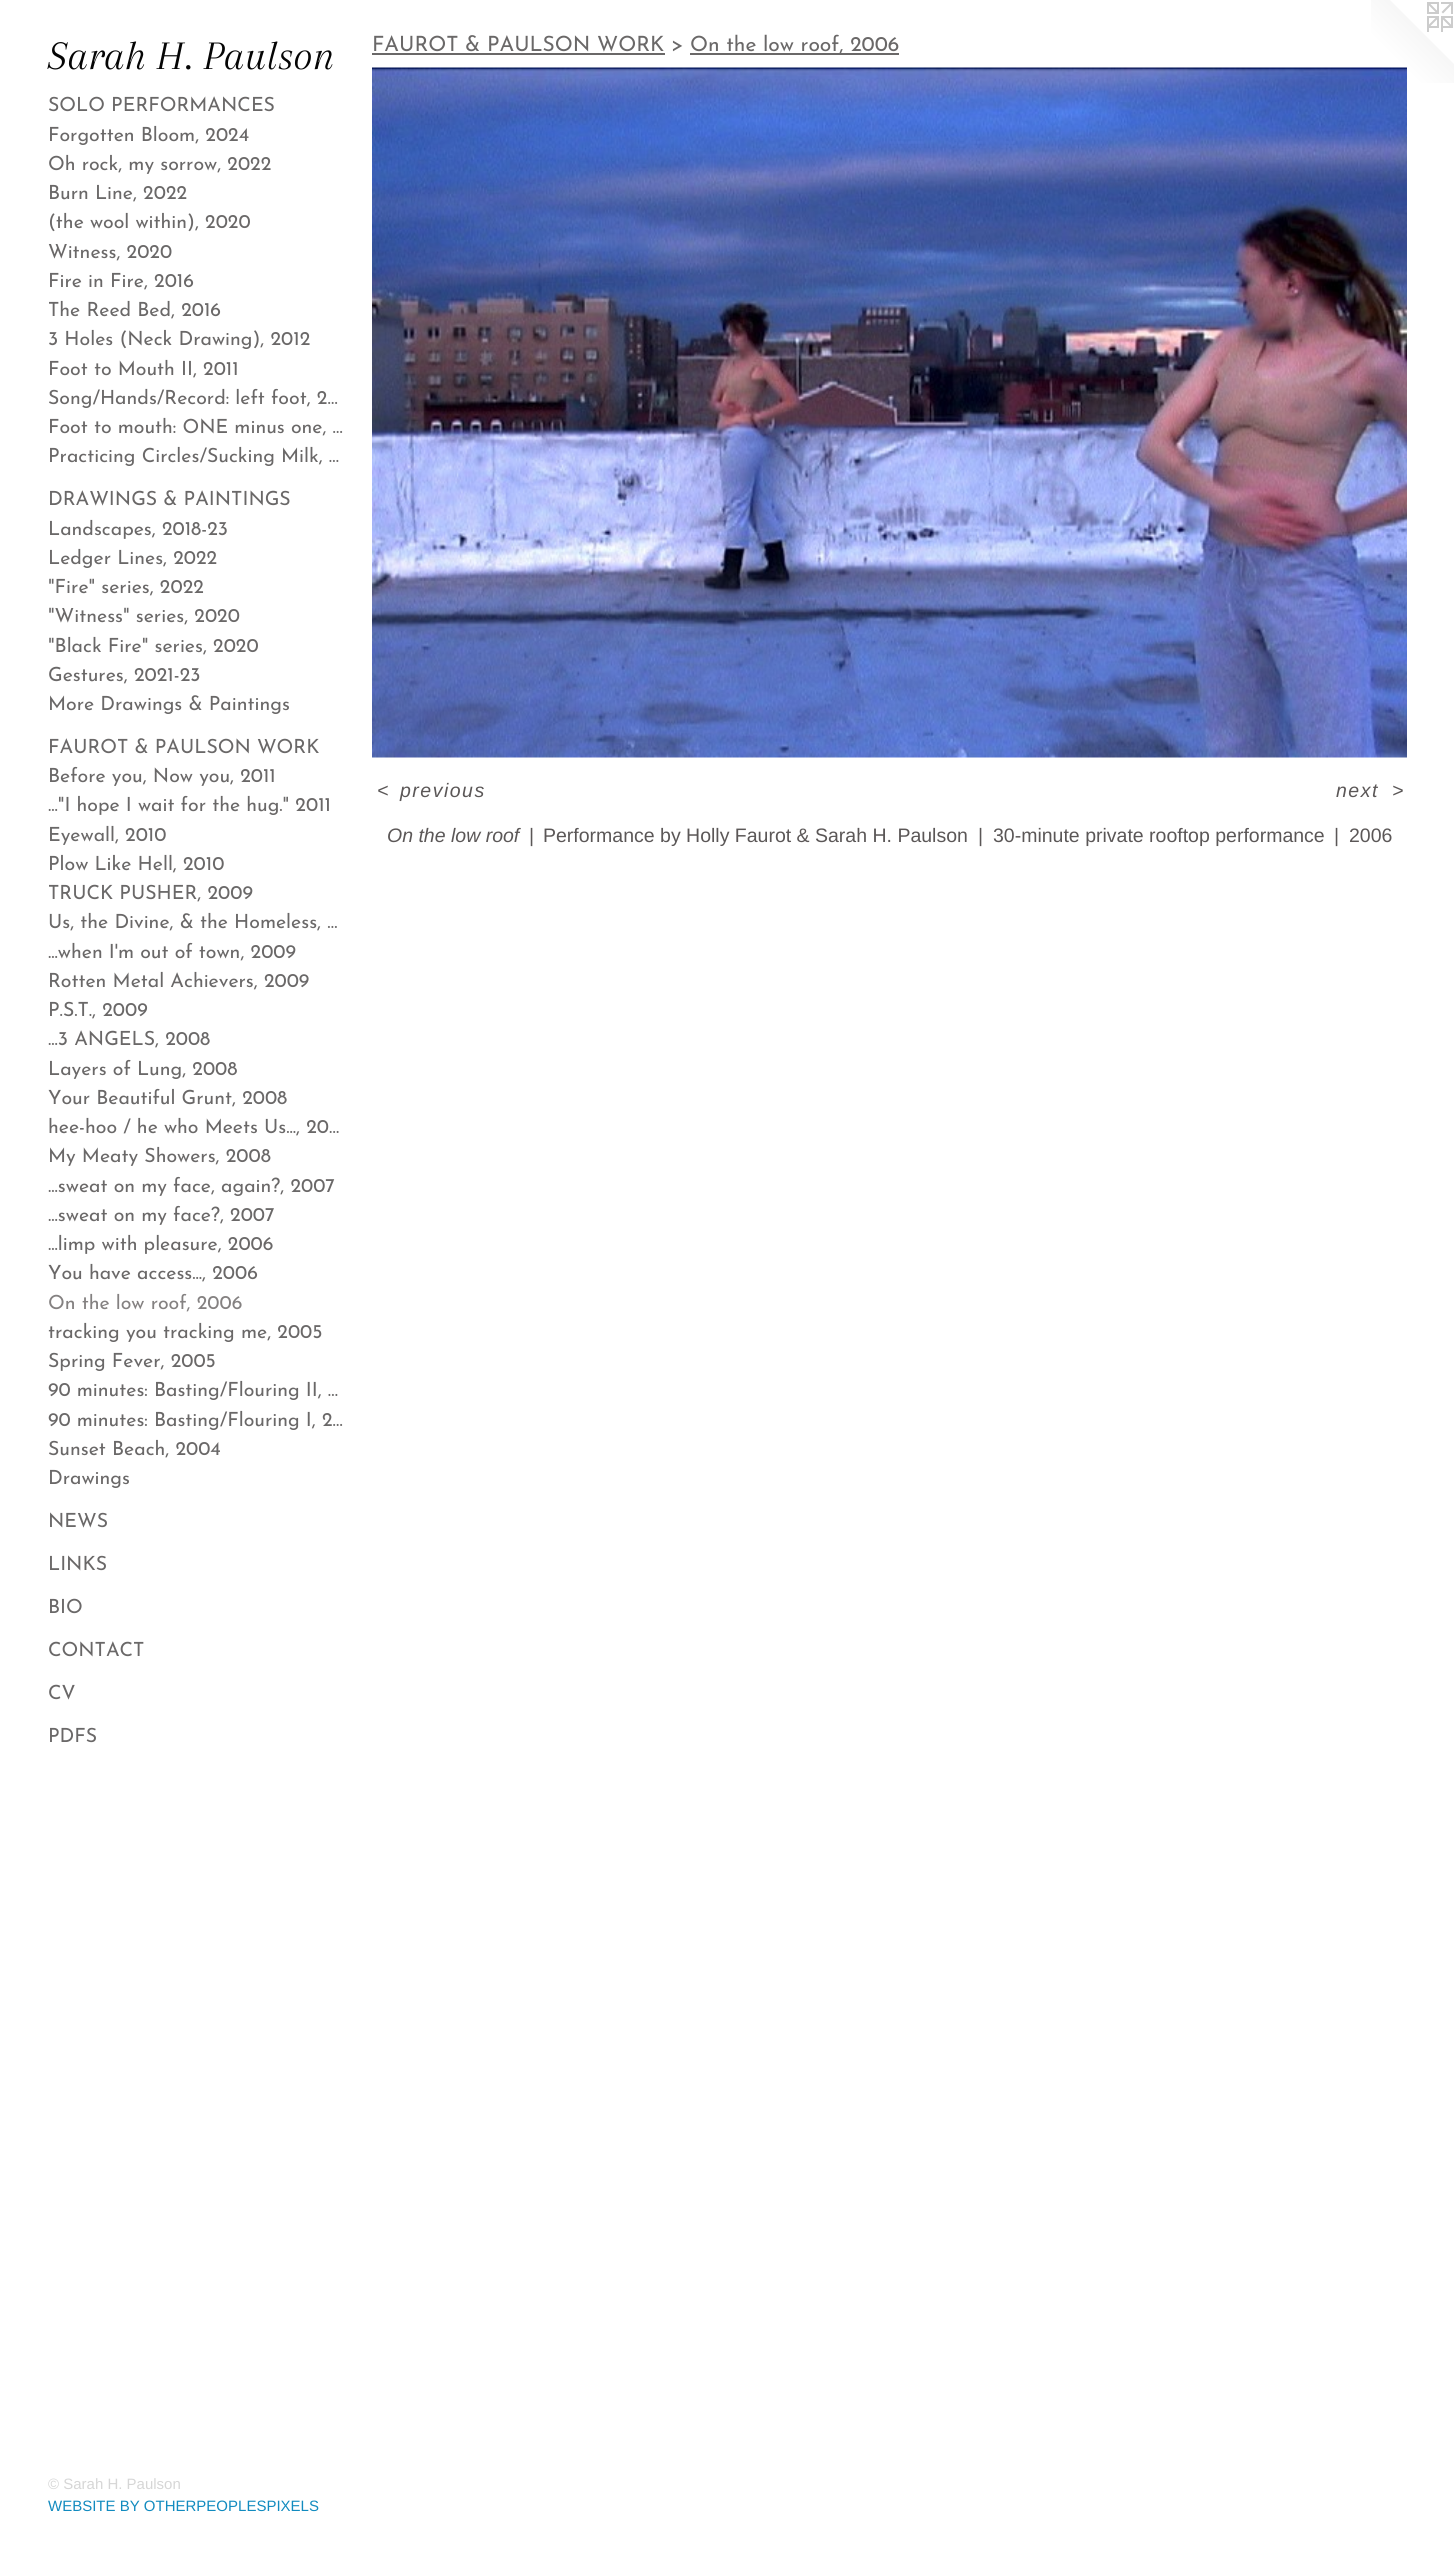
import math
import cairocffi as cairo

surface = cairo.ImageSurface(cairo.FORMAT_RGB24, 1454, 2551)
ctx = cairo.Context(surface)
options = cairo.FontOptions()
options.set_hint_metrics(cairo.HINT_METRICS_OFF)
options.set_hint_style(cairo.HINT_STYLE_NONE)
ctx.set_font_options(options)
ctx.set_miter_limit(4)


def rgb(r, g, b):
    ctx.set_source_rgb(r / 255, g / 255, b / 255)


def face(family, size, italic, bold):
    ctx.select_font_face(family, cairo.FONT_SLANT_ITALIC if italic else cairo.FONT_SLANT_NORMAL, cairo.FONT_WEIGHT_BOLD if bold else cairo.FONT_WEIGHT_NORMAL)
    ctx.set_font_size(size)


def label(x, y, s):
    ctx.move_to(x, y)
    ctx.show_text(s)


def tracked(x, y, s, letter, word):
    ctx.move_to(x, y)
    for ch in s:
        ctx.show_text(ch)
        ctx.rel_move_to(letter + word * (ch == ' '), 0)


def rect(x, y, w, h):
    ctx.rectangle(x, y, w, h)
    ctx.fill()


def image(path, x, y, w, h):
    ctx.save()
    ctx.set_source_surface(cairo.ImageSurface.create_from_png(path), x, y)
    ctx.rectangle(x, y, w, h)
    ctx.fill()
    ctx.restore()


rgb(255, 255, 255)
ctx.paint()
face('Arapey', 42, 1, 0)
rgb(5, 5, 5)
label(48, 69, 'Sarah H. Paulson')
face('Josefin Sans Thin', 19.5, 0, 0)
rgb(106, 104, 104)
label(48, 111, 'SOLO PERFORMANCES')
label(48, 141, 'Forgotten Bloom, 2024')
label(48, 170, 'Oh rock, my sorrow, 2022')
label(48, 199, 'Burn Line, 2022')
label(48, 228, '(the wool within), 2020')
label(48, 258, 'Witness, 2020')
label(48, 287, 'Fire in Fire, 2016')
label(48, 316, 'The Reed Bed, 2016')
label(48, 345, '3 Holes (Neck Drawing), 2012')
label(48, 375, 'Foot to Mouth II, 2011')
label(48, 404, 'Song/Hands/Record: left foot, 2…')
label(48, 433, 'Foot to mouth: ONE minus one, …')
label(48, 462, 'Practicing Circles/Sucking Milk, …')
label(48, 505, 'DRAWINGS & PAINTINGS')
label(48, 535, 'Landscapes, 2018-23')
label(48, 564, 'Ledger Lines, 2022')
label(48, 593, '"Fire" series, 2022')
label(48, 622, '"Witness" series, 2020')
label(48, 652, '"Black Fire" series, 2020')
label(48, 681, 'Gestures, 2021-23')
label(48, 710, 'More Drawings & Paintings')
label(48, 753, 'FAUROT & PAULSON WORK')
label(48, 782, 'Before you, Now you, 2011')
label(48, 811, '..."I hope I wait for the hug." 2011')
label(48, 841, 'Eyewall, 2010')
label(48, 870, 'Plow Like Hell, 2010')
label(48, 899, 'TRUCK PUSHER, 2009')
label(48, 928, 'Us, the Divine, & the Homeless, …')
label(48, 958, '...when I\'m out of town, 2009')
label(48, 987, 'Rotten Metal Achievers, 2009')
label(48, 1016, 'P.S.T., 2009')
label(48, 1045, '...3 ANGELS, 2008')
label(48, 1075, 'Layers of Lung, 2008')
label(48, 1104, 'Your Beautiful Grunt, 2008')
label(48, 1133, 'hee-hoo / he who Meets Us..., 20…')
label(48, 1162, 'My Meaty Showers, 2008')
label(48, 1192, '...sweat on my face, again?, 2007')
label(48, 1221, '...sweat on my face?, 2007')
label(48, 1250, '...limp with pleasure, 2006')
label(48, 1279, 'You have access..., 2006')
rgb(132, 129, 129)
label(48, 1309, 'On the low roof, 2006')
rgb(106, 104, 104)
label(48, 1338, 'tracking you tracking me, 2005')
label(48, 1367, 'Spring Fever, 2005')
label(48, 1396, '90 minutes: Basting/Flouring II, …')
label(48, 1426, '90 minutes: Basting/Flouring I, 2…')
label(48, 1455, 'Sunset Beach, 2004')
label(48, 1484, 'Drawings')
label(48, 1527, 'NEWS')
label(48, 1570, 'LINKS')
label(48, 1613, 'BIO')
label(48, 1656, 'CONTACT')
label(48, 1699, 'CV')
label(48, 1742, 'PDFS')
face('Liberation Sans', 15, 0, 0)
rgb(214, 214, 214)
label(48, 2489, '© Sarah H. Paulson')
rgb(18, 139, 191)
label(48, 2511, 'WEBSITE BY OTHERPEOPLESPIXELS')
face('Josefin Sans Thin', 21, 0, 0)
rgb(106, 104, 104)
label(372, 51, 'FAUROT & PAULSON WORK >')
rect(372, 53, 293, 2)
rect(690, 53, 209, 2)
label(690, 51, 'On the low roof, 2006')
image('image1.png', 1371, 0, 83, 83)
image('image0.png', 372, 67, 1035, 691)
face('Liberation Sans', 19.5, 1, 0)
rgb(91, 87, 87)
tracked(377, 797, '<', 1.5, 0)
tracked(400, 797, 'previous', 1.5, 0)
tracked(1336, 797, 'next', 1.5, 0)
tracked(1392, 797, '>', 1.5, 0)
label(387, 842, 'On the low roof')
face('Liberation Sans', 19.5, 0, 0)
label(529, 842, '|')
label(543, 842, 'Performance by Holly Faurot & Sarah H. Paulson')
label(978, 842, '|')
label(993, 842, '30-minute private rooftop performance')
label(1334, 842, '|')
label(1349, 842, '2006')
surface.write_to_png('render.png')
